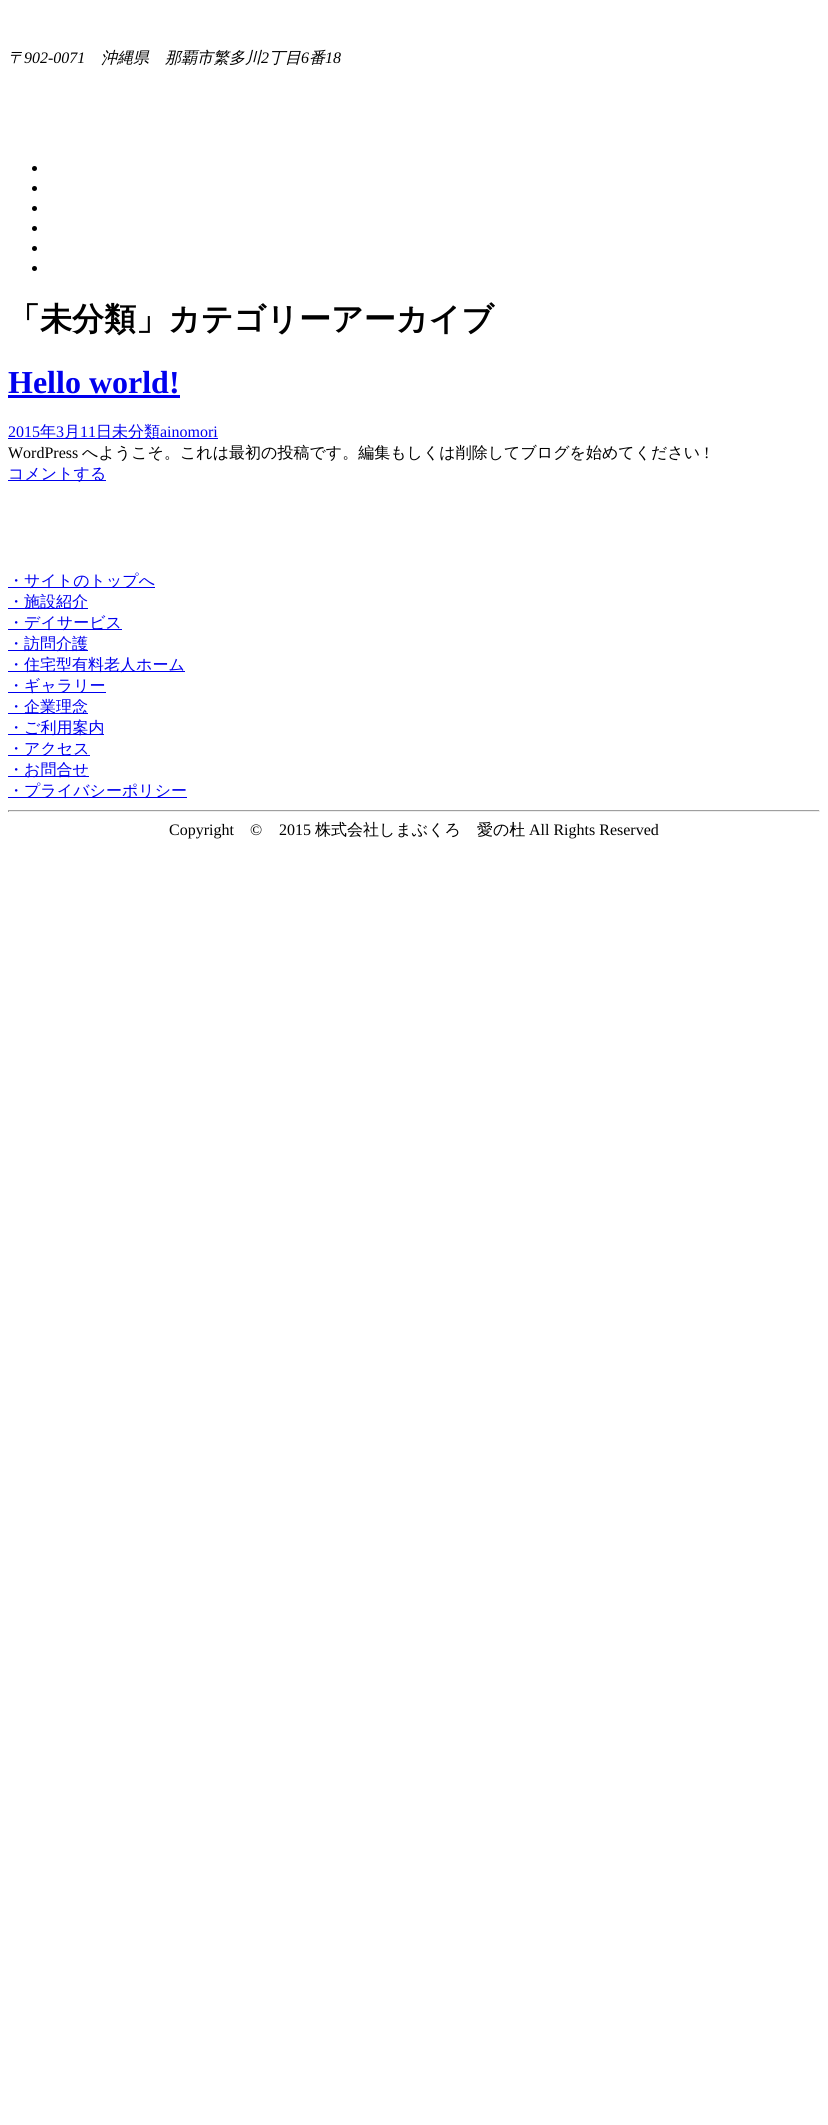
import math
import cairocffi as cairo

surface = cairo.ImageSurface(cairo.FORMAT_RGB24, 828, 2125)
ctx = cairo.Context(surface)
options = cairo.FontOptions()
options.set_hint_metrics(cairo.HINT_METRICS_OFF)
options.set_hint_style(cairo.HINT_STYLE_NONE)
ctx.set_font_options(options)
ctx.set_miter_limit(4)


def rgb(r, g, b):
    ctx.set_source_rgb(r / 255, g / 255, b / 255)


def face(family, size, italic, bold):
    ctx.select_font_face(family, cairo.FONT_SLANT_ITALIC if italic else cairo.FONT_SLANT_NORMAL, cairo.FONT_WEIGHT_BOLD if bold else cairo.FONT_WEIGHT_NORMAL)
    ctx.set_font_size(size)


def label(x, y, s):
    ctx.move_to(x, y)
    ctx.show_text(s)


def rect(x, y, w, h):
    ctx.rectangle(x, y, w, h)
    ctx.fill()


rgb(255, 255, 255)
ctx.paint()
face('WenQuanYi Zen Hei Medium', 16, 1, 0)
rgb(0, 0, 0)
label(8, 63, '〒')
face('Liberation Serif', 16, 1, 0)
label(24, 63, '902-0071')
face('WenQuanYi Zen Hei Medium', 16, 1, 0)
label(101, 63, '沖縄県　那覇市繁多川')
face('Liberation Serif', 16, 1, 0)
label(261, 63, '2')
face('WenQuanYi Zen Hei Medium', 16, 1, 0)
label(269, 63, '丁目')
face('Liberation Serif', 16, 1, 0)
label(301, 63, '6')
face('WenQuanYi Zen Hei Medium', 16, 1, 0)
label(309, 63, '番')
face('Liberation Serif', 16, 1, 0)
label(325, 63, '18')
ctx.new_path()
ctx.arc(34.5, 168.5, 2.5, 0, 2 * math.pi)
ctx.fill()
ctx.arc(34.5, 188.5, 2.5, 0, 2 * math.pi)
ctx.fill()
ctx.arc(34.5, 208.5, 2.5, 0, 2 * math.pi)
ctx.fill()
ctx.arc(34.5, 228.5, 2.5, 0, 2 * math.pi)
ctx.fill()
ctx.arc(34.5, 248.5, 2.5, 0, 2 * math.pi)
ctx.fill()
ctx.arc(34.5, 268.5, 2.5, 0, 2 * math.pi)
ctx.fill()
face('WenQuanYi Zen Hei', 32, 0, 1)
label(8, 330, '「未分類」カテゴリーアーカイブ')
face('Liberation Serif', 32, 0, 1)
rgb(0, 0, 238)
label(8, 393, 'Hello world!')
rect(8, 395, 172, 3)
face('Liberation Serif', 16, 0, 0)
label(8, 437, '2015')
rect(8, 438, 210, 1)
face('WenQuanYi Zen Hei Medium', 16, 0, 0)
label(40, 437, '年')
face('Liberation Serif', 16, 0, 0)
label(56, 437, '3')
face('WenQuanYi Zen Hei Medium', 16, 0, 0)
label(64, 437, '月')
face('Liberation Serif', 16, 0, 0)
label(80, 437, '11')
face('WenQuanYi Zen Hei Medium', 16, 0, 0)
label(96, 437, '日未分類')
face('Liberation Serif', 16, 0, 0)
label(160, 437, 'ainomori')
rgb(0, 0, 0)
label(8, 458, 'WordPress')
face('WenQuanYi Zen Hei Medium', 16, 0, 0)
label(82, 458, 'へようこそ。これは最初の投稿です。編集もしくは削除してブログを始めてください')
face('Liberation Serif', 16, 0, 0)
label(704, 458, '!')
rgb(0, 0, 238)
rect(8, 480, 98, 1)
face('WenQuanYi Zen Hei Medium', 16, 0, 0)
label(8, 479, 'コメントする')
rect(8, 587, 147, 1)
label(8, 586, '・サイトのトップへ')
rect(8, 608, 80, 1)
label(8, 607, '・施設紹介')
rect(8, 629, 114, 1)
label(8, 628, '・デイサービス')
rect(8, 650, 80, 1)
label(8, 649, '・訪問介護')
rect(8, 671, 177, 1)
label(8, 670, '・住宅型有料老人ホーム')
rect(8, 692, 98, 1)
label(8, 691, '・ギャラリー')
rect(8, 713, 80, 1)
label(8, 712, '・企業理念')
rect(8, 734, 96, 1)
label(8, 733, '・ご利用案内')
rect(8, 755, 82, 1)
label(8, 754, '・アクセス')
rect(8, 776, 81, 1)
label(8, 775, '・お問合せ')
rect(8, 797, 179, 1)
label(8, 796, '・プライバシーポリシー')
rgb(159, 159, 159)
rect(8, 810, 812, 1)
rgb(238, 238, 238)
rect(819, 810, 1, 2)
rect(8, 811, 812, 1)
rgb(159, 159, 159)
rect(8, 810, 1, 2)
face('Liberation Serif', 16, 0, 0)
rgb(0, 0, 0)
label(169, 835, 'Copyright')
label(250, 835, '©')
label(279, 835, '2015')
face('WenQuanYi Zen Hei Medium', 16, 0, 0)
label(315, 835, '株式会社しまぶくろ　愛の杜')
face('Liberation Serif', 16, 0, 0)
label(529, 835, 'All Rights Reserved')
surface.write_to_png('render.png')
